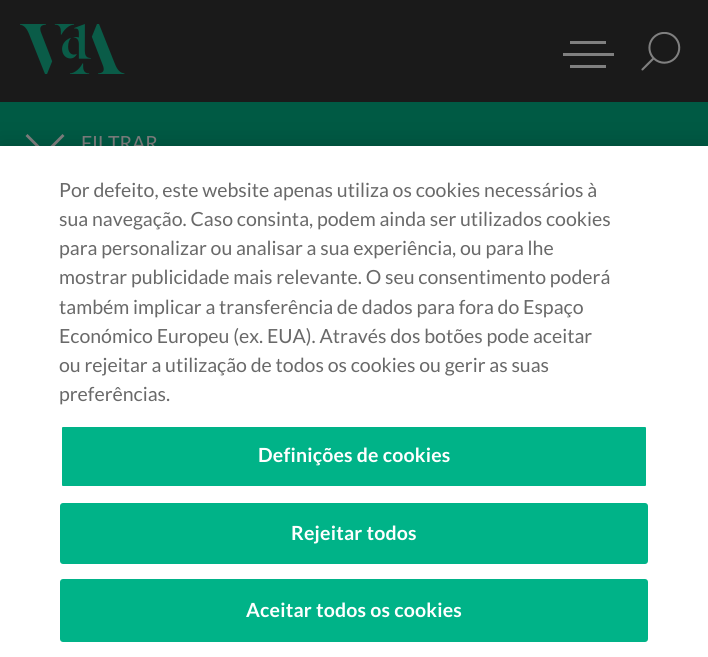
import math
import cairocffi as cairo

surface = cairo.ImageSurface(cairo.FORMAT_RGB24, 708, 657)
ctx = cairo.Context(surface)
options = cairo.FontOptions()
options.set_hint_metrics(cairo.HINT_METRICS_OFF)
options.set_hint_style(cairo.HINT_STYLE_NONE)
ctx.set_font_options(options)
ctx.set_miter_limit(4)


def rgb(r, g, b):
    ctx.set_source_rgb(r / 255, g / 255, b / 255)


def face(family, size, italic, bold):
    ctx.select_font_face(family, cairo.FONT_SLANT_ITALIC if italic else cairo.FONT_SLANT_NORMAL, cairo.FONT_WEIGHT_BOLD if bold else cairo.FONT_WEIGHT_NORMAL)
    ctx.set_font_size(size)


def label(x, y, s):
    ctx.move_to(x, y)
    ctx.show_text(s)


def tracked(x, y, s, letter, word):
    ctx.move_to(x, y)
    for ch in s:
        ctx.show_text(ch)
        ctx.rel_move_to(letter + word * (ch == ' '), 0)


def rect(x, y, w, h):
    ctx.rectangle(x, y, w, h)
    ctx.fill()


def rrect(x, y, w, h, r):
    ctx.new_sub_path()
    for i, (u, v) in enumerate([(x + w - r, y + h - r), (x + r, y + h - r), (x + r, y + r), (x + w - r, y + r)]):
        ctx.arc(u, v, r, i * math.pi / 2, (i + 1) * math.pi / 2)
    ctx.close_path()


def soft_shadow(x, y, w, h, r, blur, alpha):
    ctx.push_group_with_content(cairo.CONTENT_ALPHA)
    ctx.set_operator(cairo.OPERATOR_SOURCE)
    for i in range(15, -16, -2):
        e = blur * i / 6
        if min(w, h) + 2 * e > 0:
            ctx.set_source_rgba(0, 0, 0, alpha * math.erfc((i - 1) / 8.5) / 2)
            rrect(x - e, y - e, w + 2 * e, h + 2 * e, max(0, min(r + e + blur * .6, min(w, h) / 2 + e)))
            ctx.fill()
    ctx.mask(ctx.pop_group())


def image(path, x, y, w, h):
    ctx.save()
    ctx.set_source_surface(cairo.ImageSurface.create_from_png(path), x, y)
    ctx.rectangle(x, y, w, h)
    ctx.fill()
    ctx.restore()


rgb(26, 26, 26)
ctx.paint()
image('image0.png', 20, 24, 105, 50)
rgb(128, 128, 128)
rect(570, 41, 36, 3)
rect(563, 53, 51, 3)
rect(570, 65, 36, 3)
image('image1.png', 641, 32, 40, 39)
rgb(0, 90, 68)
rect(0, 102, 708, 44)
rgb(128, 128, 128)
ctx.new_path()
ctx.move_to(27.5, 134)
ctx.line_to(46.5, 153)
ctx.line_to(44.5, 155)
ctx.line_to(25.5, 136)
ctx.close_path()
ctx.fill()
ctx.new_path()
ctx.move_to(43.5, 153)
ctx.line_to(62.5, 134)
ctx.line_to(64.5, 136)
ctx.line_to(45.5, 155)
ctx.close_path()
ctx.fill()
face('Lato', 19.5, 0, 0)
label(81, 150, 'FILTRAR')
rgb(0, 0, 0)
soft_shadow(0, 146, 708, 511, 0, 13.5, 0.2)
rgb(255, 255, 255)
rect(0, 146, 708, 511)
rgb(105, 105, 105)
label(59, 197, 'Por defeito, este website apenas utiliza os cookies necessários à')
label(59, 226, 'sua navegação. Caso consinta, podem ainda ser utilizados cookies')
label(59, 255, 'para personalizar ou analisar a sua experiência, ou para lhe')
label(59, 284, 'mostrar publicidade mais relevante. O seu consentimento poderá')
label(59, 314, 'também implicar a transferência de dados para fora do Espaço')
label(59, 343, 'Económico Europeu (ex. EUA). Através dos botões pode aceitar')
label(59, 372, 'ou rejeitar a utilização de todos os cookies ou gerir as suas')
label(59, 401, 'preferências.')
rgb(0, 179, 136)
rrect(61, 426, 586, 61, 2)
ctx.fill_preserve()
rgb(255, 255, 255)
ctx.stroke()
face('Lato', 19.5, 0, 1)
tracked(258, 462, 'Definições de cookies', 0.2, 0)
rgb(0, 179, 136)
rrect(61, 504, 586, 59, 2)
ctx.fill_preserve()
ctx.stroke()
rgb(255, 255, 255)
tracked(291, 540, 'Rejeitar todos', 0.2, 0)
rgb(0, 179, 136)
rrect(61, 580, 586, 61, 2)
ctx.fill_preserve()
ctx.stroke()
rgb(255, 255, 255)
tracked(246, 617, 'Aceitar todos os cookies', 0.2, 0)
surface.write_to_png('render.png')
